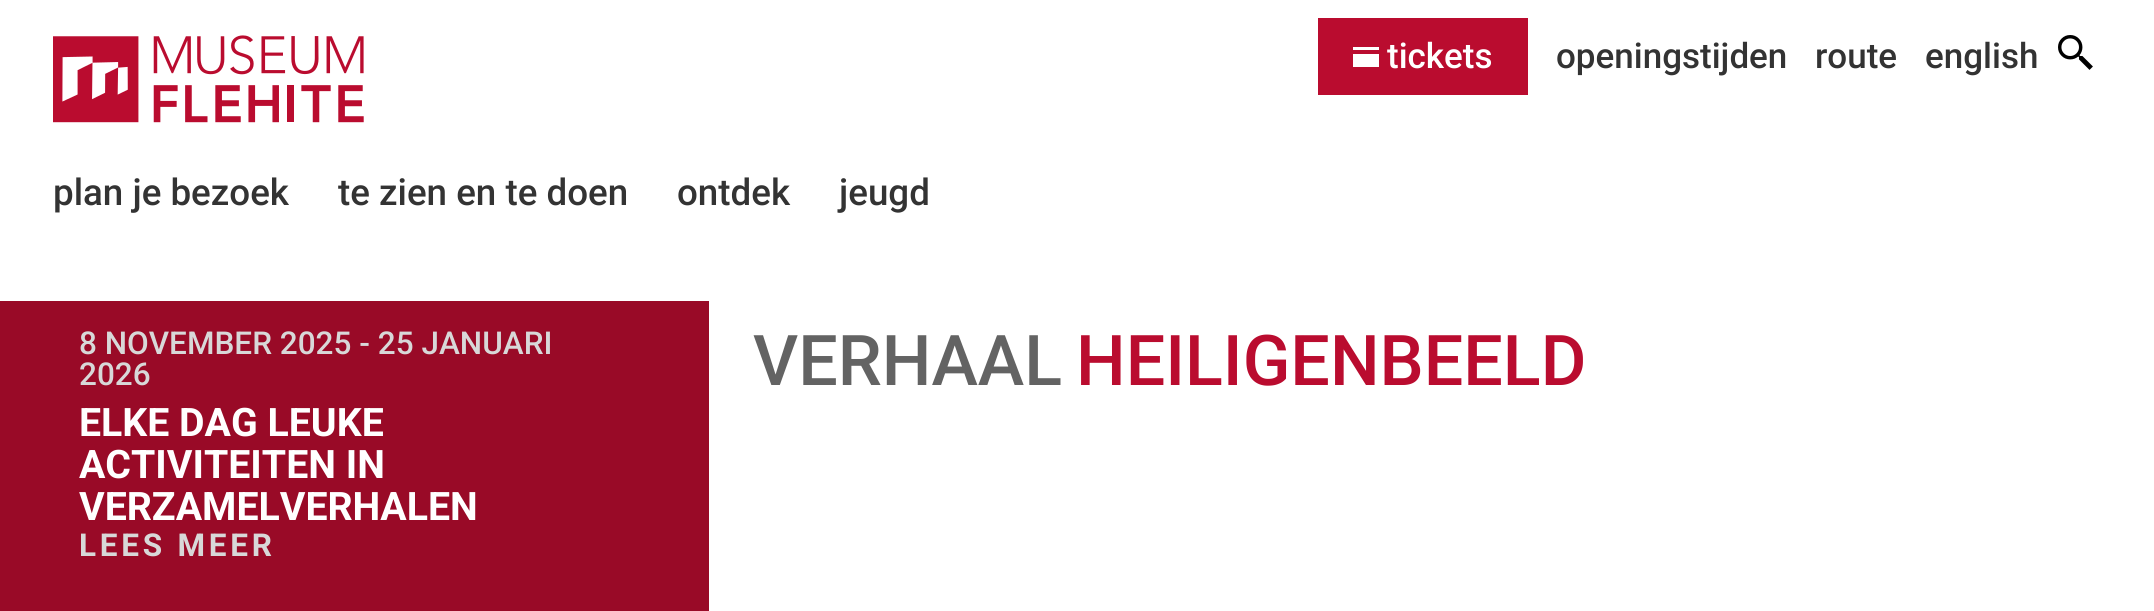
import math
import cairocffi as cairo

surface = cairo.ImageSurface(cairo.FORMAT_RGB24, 2154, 611)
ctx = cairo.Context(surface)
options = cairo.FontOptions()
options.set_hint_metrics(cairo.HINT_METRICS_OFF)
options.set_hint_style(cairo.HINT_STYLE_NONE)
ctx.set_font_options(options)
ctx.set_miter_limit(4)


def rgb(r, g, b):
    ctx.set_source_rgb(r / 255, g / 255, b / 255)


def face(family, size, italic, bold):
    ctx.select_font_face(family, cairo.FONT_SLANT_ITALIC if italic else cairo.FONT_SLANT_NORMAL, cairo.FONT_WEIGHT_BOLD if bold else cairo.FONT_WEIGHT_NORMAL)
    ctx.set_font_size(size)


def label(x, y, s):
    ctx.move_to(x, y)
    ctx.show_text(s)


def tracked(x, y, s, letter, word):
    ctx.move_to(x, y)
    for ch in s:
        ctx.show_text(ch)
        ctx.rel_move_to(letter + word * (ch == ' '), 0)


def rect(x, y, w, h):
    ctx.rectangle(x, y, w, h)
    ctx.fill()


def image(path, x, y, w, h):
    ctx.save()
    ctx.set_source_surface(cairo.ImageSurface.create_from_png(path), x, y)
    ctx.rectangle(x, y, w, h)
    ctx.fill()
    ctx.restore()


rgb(255, 255, 255)
ctx.paint()
image('image0.png', 53, 35, 311, 88)
rgb(186, 12, 47)
rect(1318, 18, 210, 77)
ctx.save()
ctx.rectangle(1353, 47, 26, 21)
ctx.clip()
rgb(255, 255, 255)
ctx.new_path()
ctx.move_to(1353, 46)
ctx.line_to(1379.5, 46)
ctx.line_to(1379.5, 50)
ctx.line_to(1353, 50)
ctx.close_path()
ctx.move_to(1353, 54)
ctx.line_to(1379.5, 54)
ctx.line_to(1379.5, 67)
ctx.line_to(1353, 67)
ctx.close_path()
ctx.fill()
ctx.restore()
face('Roboto Medium', 35, 0, 0)
rgb(255, 255, 255)
label(1387, 68, 'tickets')
rgb(51, 51, 51)
label(1556, 68, 'openingstijden')
label(1815, 68, 'route')
label(1925, 68, 'english')
image('image1.png', 2058, 35, 35, 35)
face('Roboto Medium', 36.75, 0, 0)
label(53, 205, 'plan je bezoek')
label(338, 205, 'te zien en te doen')
label(677, 205, 'ontdek')
label(839, 205, 'jeugd')
rgb(153, 10, 39)
rect(0, 301, 709, 310)
face('Roboto Medium', 31.5, 0, 0)
rgb(216, 216, 216)
label(79, 354, '8 NOVEMBER 2025 - 25 JANUARI')
label(79, 385, '2026')
face('Roboto', 39.25, 0, 1)
rgb(255, 255, 255)
label(79, 436, 'ELKE DAG LEUKE')
label(79, 478, 'ACTIVITEITEN IN')
label(79, 520, 'VERZAMELVERHALEN')
face('Roboto', 31.5, 0, 1)
rgb(216, 216, 216)
tracked(79, 556, 'LEES MEER', 3.75, 0)
face('Roboto Medium', 70, 0, 0)
rgb(99, 99, 99)
label(753, 385, 'VERHAAL')
rgb(186, 12, 47)
label(1076, 385, 'HEILIGENBEELD')
surface.write_to_png('render.png')
